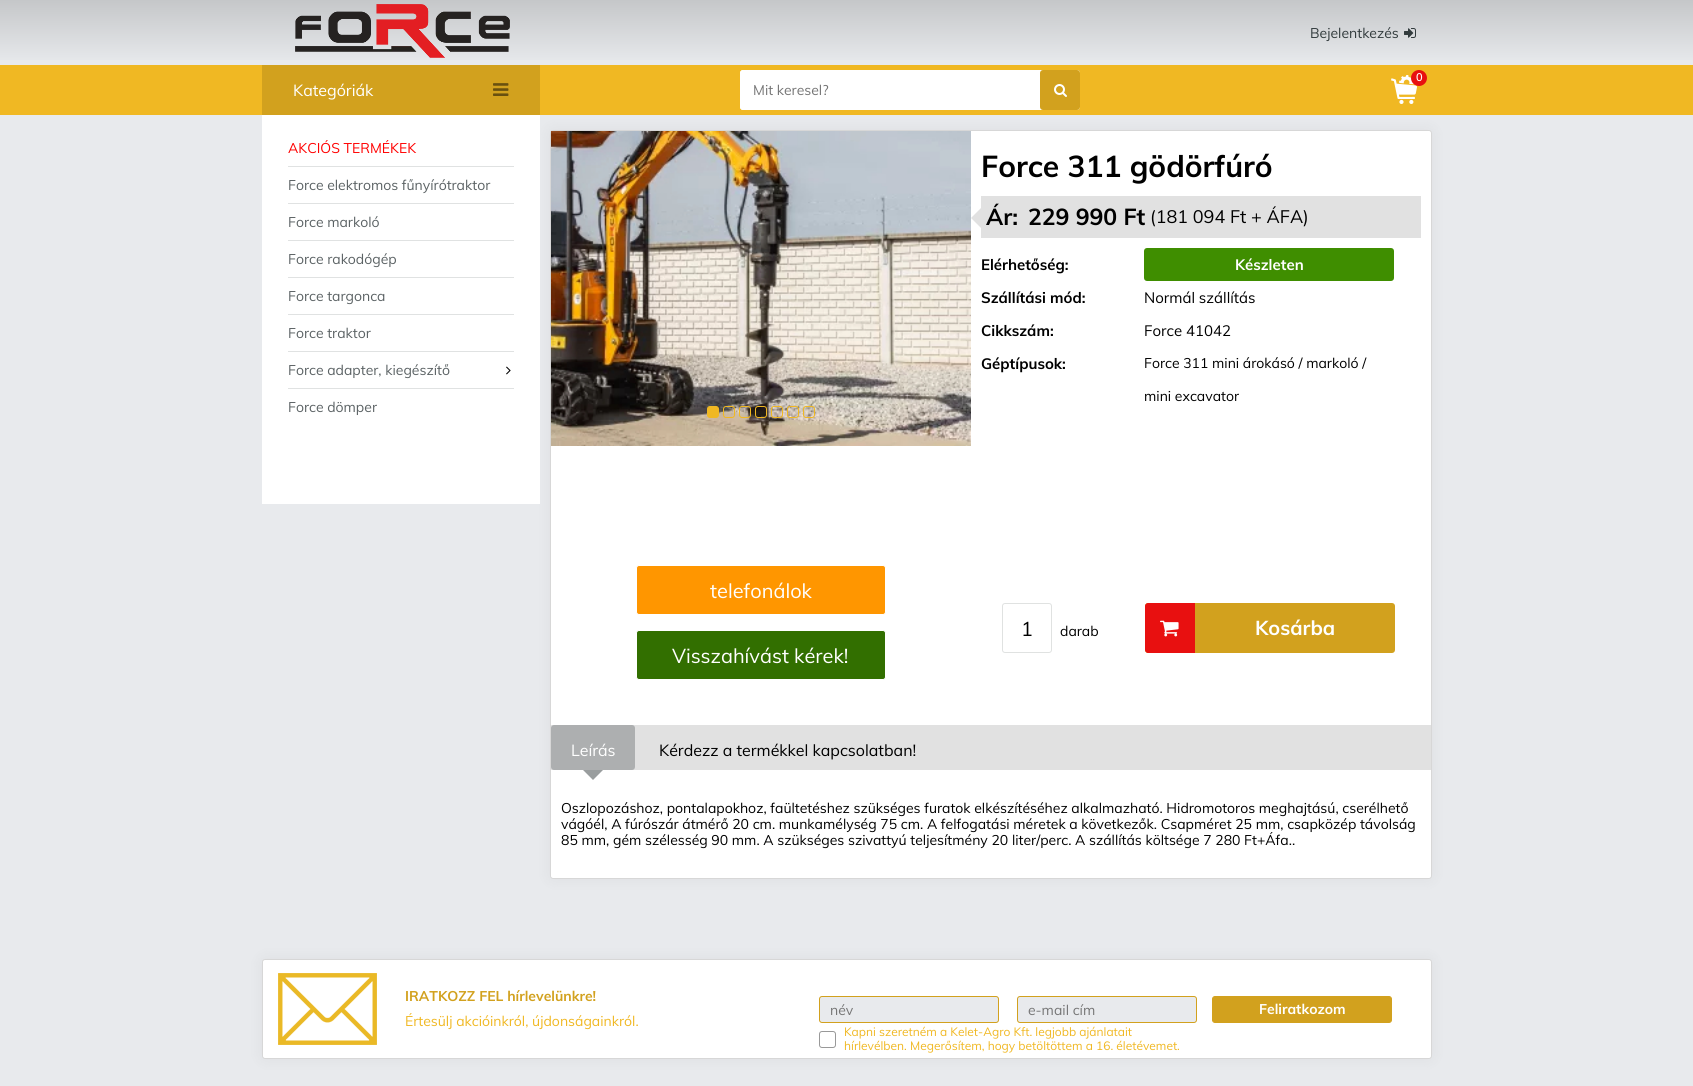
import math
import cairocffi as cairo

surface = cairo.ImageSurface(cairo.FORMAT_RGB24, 1693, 1086)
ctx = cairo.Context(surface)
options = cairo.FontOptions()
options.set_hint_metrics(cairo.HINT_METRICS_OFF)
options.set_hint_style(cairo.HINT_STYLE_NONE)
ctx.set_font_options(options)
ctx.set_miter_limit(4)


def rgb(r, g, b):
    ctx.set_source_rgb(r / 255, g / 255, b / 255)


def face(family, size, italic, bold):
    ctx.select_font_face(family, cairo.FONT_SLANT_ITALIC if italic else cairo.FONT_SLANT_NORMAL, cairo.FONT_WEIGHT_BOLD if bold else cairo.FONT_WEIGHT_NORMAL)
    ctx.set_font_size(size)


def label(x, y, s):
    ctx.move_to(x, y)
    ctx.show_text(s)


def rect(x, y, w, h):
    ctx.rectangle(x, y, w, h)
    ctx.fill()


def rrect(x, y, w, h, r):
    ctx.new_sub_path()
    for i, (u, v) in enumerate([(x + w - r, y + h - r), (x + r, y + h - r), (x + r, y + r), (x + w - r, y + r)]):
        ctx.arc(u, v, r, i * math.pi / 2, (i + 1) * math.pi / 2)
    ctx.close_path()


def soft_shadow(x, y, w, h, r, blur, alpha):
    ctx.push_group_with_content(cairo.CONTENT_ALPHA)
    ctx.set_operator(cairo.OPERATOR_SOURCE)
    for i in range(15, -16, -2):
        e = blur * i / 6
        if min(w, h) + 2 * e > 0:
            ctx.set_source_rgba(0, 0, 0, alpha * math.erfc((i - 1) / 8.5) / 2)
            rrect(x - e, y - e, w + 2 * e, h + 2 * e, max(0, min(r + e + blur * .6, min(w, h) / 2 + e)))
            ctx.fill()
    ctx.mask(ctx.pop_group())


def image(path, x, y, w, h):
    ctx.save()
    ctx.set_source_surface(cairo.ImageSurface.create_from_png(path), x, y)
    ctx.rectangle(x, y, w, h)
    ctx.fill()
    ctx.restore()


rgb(232, 234, 237)
ctx.paint()
gradient = cairo.LinearGradient(847, 0, 847, 65)
gradient.add_color_stop_rgba(0, 0.773, 0.78, 0.788, 1)
gradient.add_color_stop_rgba(1, 0.91, 0.918, 0.929, 1)
ctx.set_source(gradient)
rect(0, 0, 1693, 60)
image('image0.png', 295, 4, 215, 54)
face('Muli', 14, 0, 0)
rgb(50, 59, 61)
label(1310, 38, 'Bejelentkezés')
image('image1.png', 1404, 28, 12, 10)
rgb(240, 184, 35)
rect(0, 65, 1693, 50)
image('image2.png', 1391, 75, 26, 29)
rgb(232, 16, 16)
ctx.arc(1419, 78, 8, 0, 2 * math.pi)
ctx.fill()
face('Muli SemiBold', 11, 0, 0)
rgb(255, 255, 255)
label(1416, 81, '0')
rgb(2, 2, 2)
soft_shadow(550, 130, 882, 749, 3, 7.5, 0.05)
rgb(210, 161, 30)
rect(262, 65, 278, 50)
face('Muli', 16, 0, 0)
rgb(255, 255, 255)
label(293, 96, 'Kategóriák')
image('image3.png', 493, 83, 16, 13)
rect(262, 115, 278, 389)
face('Muli', 14, 0, 0)
rgb(255, 0, 0)
label(288, 153, 'AKCIÓS TERMÉKEK')
rgb(224, 226, 226)
rect(288, 166, 226, 1)
rgb(91, 98, 100)
label(288, 190, 'Force elektromos fűnyírótraktor')
rgb(224, 226, 226)
rect(288, 203, 226, 1)
rgb(91, 98, 100)
label(288, 227, 'Force markoló')
rgb(224, 226, 226)
rect(288, 240, 226, 1)
rgb(91, 98, 100)
label(288, 264, 'Force rakodógép')
rgb(224, 226, 226)
rect(288, 277, 226, 1)
rgb(91, 98, 100)
label(288, 301, 'Force targonca')
rgb(224, 226, 226)
rect(288, 314, 226, 1)
rgb(91, 98, 100)
label(288, 338, 'Force traktor')
rgb(224, 226, 226)
rect(288, 351, 226, 1)
rgb(91, 98, 100)
label(288, 375, 'Force adapter, kiegészítő')
image('image4.png', 506, 366, 5, 9)
rgb(224, 226, 226)
rect(288, 388, 226, 1)
rgb(91, 98, 100)
label(288, 412, 'Force dömper')
rgb(255, 255, 255)
rrect(740, 70, 340, 40, 3)
ctx.fill()
rrect(740, 70, 300, 40, 3)
ctx.fill()
rgb(117, 117, 117)
label(753, 95, 'Mit keresel?')
rgb(210, 161, 30)
rrect(1040, 70, 40, 40, 3)
ctx.fill()
image('image5.png', 1054, 84, 13, 13)
rgb(255, 255, 255)
rrect(550.5, 130.5, 881, 748, 2.5)
ctx.fill_preserve()
rgb(215, 215, 215)
ctx.set_line_width(1)
ctx.stroke()
image('image6.png', 551, 131, 420, 315)
rgb(240, 184, 35)
rrect(707.5, 406.5, 11, 11, 2.5)
ctx.fill_preserve()
ctx.stroke()
rrect(723.5, 406.5, 11, 11, 2.5)
ctx.stroke()
rrect(739.5, 406.5, 11, 11, 2.5)
ctx.stroke()
rrect(755.5, 406.5, 11, 11, 2.5)
ctx.stroke()
rrect(771.5, 406.5, 11, 11, 2.5)
ctx.stroke()
rrect(787.5, 406.5, 11, 11, 2.5)
ctx.stroke()
rrect(803.5, 406.5, 11, 11, 2.5)
ctx.stroke()
rgb(255, 150, 0)
rrect(636.5, 565.5, 249, 49, 2.5)
ctx.fill_preserve()
rgb(255, 255, 255)
ctx.stroke()
face('Muli', 20, 0, 0)
label(710, 598, 'telefonálok')
rgb(50, 111, 0)
rrect(636.5, 630.5, 249, 49, 2.5)
ctx.fill_preserve()
rgb(255, 255, 255)
ctx.stroke()
label(672, 663, 'Visszahívást kérek!')
face('Muli', 30, 0, 1)
rgb(0, 0, 0)
label(981, 177, 'Force 311 gödörfúró')
rgb(225, 225, 225)
ctx.new_path()
ctx.move_to(981, 208)
ctx.line_to(981, 228)
ctx.line_to(971, 218)
ctx.close_path()
ctx.fill()
rect(981, 196, 440, 42)
face('Muli', 23, 0, 1)
rgb(0, 0, 0)
label(986, 225, 'Ár:')
label(1028, 225, '229 990 Ft')
face('Muli', 18, 0, 0)
label(1150, 223, '(181 094 Ft + ÁFA)')
face('Muli', 15, 0, 1)
label(981, 270, 'Elérhetőség:')
rgb(63, 142, 0)
rrect(1144, 248, 250, 33, 3)
ctx.fill()
rgb(255, 255, 255)
label(1235, 270, 'Készleten')
rgb(0, 0, 0)
label(981, 303, 'Szállítási mód:')
face('Muli', 15, 0, 0)
label(1144, 303, 'Normál szállítás')
face('Muli', 15, 0, 1)
label(981, 336, 'Cikkszám:')
face('Muli', 15, 0, 0)
label(1144, 336, 'Force 41042')
face('Muli', 15, 0, 1)
label(981, 369, 'Géptípusok:')
face('Muli', 14, 0, 0)
label(1144, 368, 'Force 311 mini árokásó / markoló /')
label(1144, 401, 'mini excavator')
rrect(1002.5, 603.5, 49, 49, 2.5)
rgb(224, 226, 225)
ctx.stroke()
face('Muli', 20, 0, 0)
rgb(0, 0, 0)
label(1021, 636, '1')
face('Muli', 14, 0, 0)
label(1060, 636, 'darab')
rgb(210, 161, 30)
rrect(1145, 603, 250, 50, 3)
ctx.fill()
rgb(232, 16, 16)
ctx.new_path()
ctx.move_to(1148, 603)
ctx.line_to(1195, 603)
ctx.line_to(1195, 653)
ctx.line_to(1148, 653)
ctx.curve_to(1146.5, 653, 1145, 651.5, 1145, 650)
ctx.line_to(1145, 606)
ctx.curve_to(1145, 604.5, 1146.5, 603, 1148, 603)
ctx.close_path()
ctx.fill()
image('image7.png', 1160, 620, 19, 17)
face('Muli', 20, 0, 1)
rgb(255, 255, 255)
label(1255, 635, 'Kosárba')
rgb(225, 225, 225)
rect(551, 725, 880, 45)
rgb(173, 175, 176)
rrect(551, 725, 84, 45, 3)
ctx.fill()
face('Muli', 16, 0, 0)
rgb(255, 255, 255)
label(571, 756, 'Leírás')
rgb(153, 157, 158)
ctx.new_path()
ctx.move_to(583, 770)
ctx.line_to(603, 770)
ctx.line_to(593, 780)
ctx.close_path()
ctx.fill()
rgb(0, 0, 0)
label(659, 756, 'Kérdezz a termékkel kapcsolatban!')
face('Muli', 14, 0, 0)
label(561, 813, 'Oszlopozáshoz, pontalapokhoz, faültetéshez szükséges furatok elkészítéséhez alkalmazható. Hidromotoros meghajtású, cserélhető')
label(561, 829, 'vágóél, A fúrószár átmérő 20 cm. munkamélység 75 cm. A felfogatási méretek a következők. Csapméret 25 mm, csapközép távolság')
label(561, 845, '85 mm, gém szélesség 90 mm. A szükséges szivattyú teljesítmény 20 liter/perc. A szállítás költsége 7 280 Ft+Áfa..')
rgb(2, 2, 2)
soft_shadow(262, 959, 1170, 100, 3, 7.5, 0.05)
rgb(255, 255, 255)
rrect(262.5, 959.5, 1169, 99, 2.5)
ctx.fill_preserve()
rgb(215, 215, 215)
ctx.stroke()
image('image8.png', 278, 973, 99, 72)
face('Muli', 14, 0, 1)
rgb(210, 161, 30)
label(405, 1001, 'IRATKOZZ FEL hírlevelünkre!')
face('Muli', 14, 0, 0)
rgb(240, 184, 35)
label(405, 1026, 'Értesülj akcióinkról, újdonságainkról.')
rgb(232, 234, 237)
rrect(819.5, 996.5, 179, 26, 2.5)
ctx.fill_preserve()
rgb(210, 161, 30)
ctx.stroke()
rgb(117, 117, 117)
label(830, 1015, 'név')
rgb(232, 234, 237)
rrect(1017.5, 996.5, 179, 26, 2.5)
ctx.fill_preserve()
rgb(210, 161, 30)
ctx.stroke()
rgb(117, 117, 117)
label(1028, 1015, 'e-mail cím')
rrect(819.5, 1031.5, 16, 16, 2.5)
rgb(153, 153, 153)
ctx.stroke()
face('Muli', 12, 0, 0)
rgb(240, 184, 35)
label(844, 1036, 'Kapni szeretném a Kelet-Agro Kft. legjobb ajánlatait')
label(844, 1050, 'hírlevélben. Megerősítem, hogy betöltöttem a 16. életévemet.')
rgb(210, 161, 30)
rrect(1212.5, 996.5, 179, 26, 2.5)
ctx.fill_preserve()
ctx.stroke()
face('Muli', 14, 0, 1)
rgb(255, 255, 255)
label(1259, 1014, 'Feliratkozom')
surface.write_to_png('render.png')
